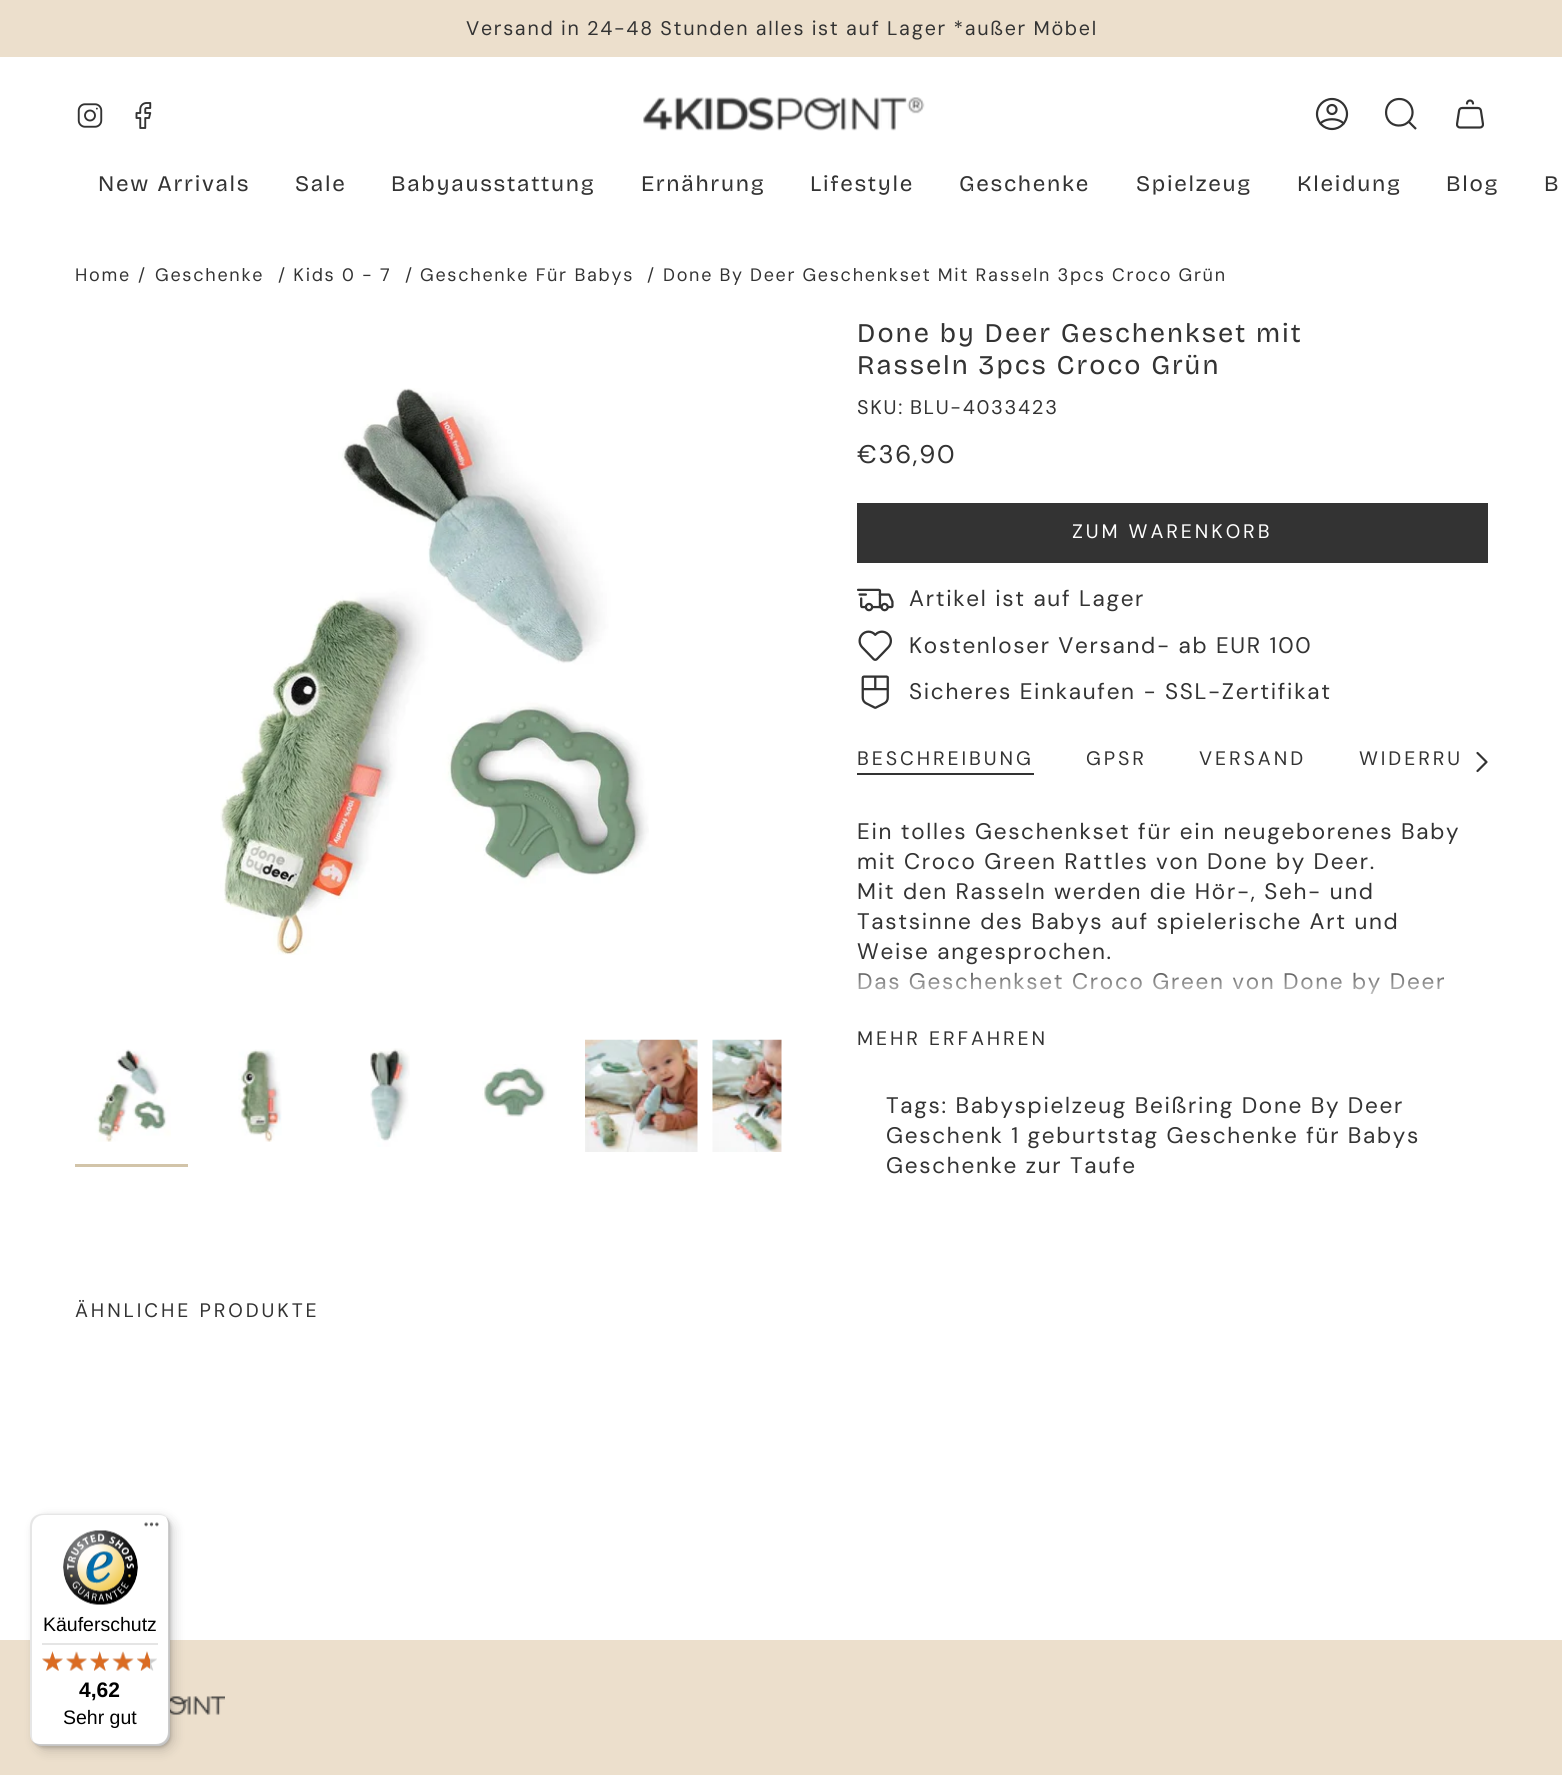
import math
import cairocffi as cairo

surface = cairo.ImageSurface(cairo.FORMAT_RGB24, 1562, 1775)
ctx = cairo.Context(surface)
options = cairo.FontOptions()
options.set_hint_metrics(cairo.HINT_METRICS_OFF)
options.set_hint_style(cairo.HINT_STYLE_NONE)
ctx.set_font_options(options)
ctx.set_miter_limit(4)


def rgb(r, g, b):
    ctx.set_source_rgb(r / 255, g / 255, b / 255)


def face(family, size, italic, bold):
    ctx.select_font_face(family, cairo.FONT_SLANT_ITALIC if italic else cairo.FONT_SLANT_NORMAL, cairo.FONT_WEIGHT_BOLD if bold else cairo.FONT_WEIGHT_NORMAL)
    ctx.set_font_size(size)


def label(x, y, s):
    ctx.move_to(x, y)
    ctx.show_text(s)


def tracked(x, y, s, letter, word):
    ctx.move_to(x, y)
    for ch in s:
        ctx.show_text(ch)
        ctx.rel_move_to(letter + word * (ch == ' '), 0)


def rect(x, y, w, h):
    ctx.rectangle(x, y, w, h)
    ctx.fill()


def rrect(x, y, w, h, r):
    ctx.new_sub_path()
    for i, (u, v) in enumerate([(x + w - r, y + h - r), (x + r, y + h - r), (x + r, y + r), (x + w - r, y + r)]):
        ctx.arc(u, v, r, i * math.pi / 2, (i + 1) * math.pi / 2)
    ctx.close_path()


def soft_shadow(x, y, w, h, r, blur, alpha):
    ctx.push_group_with_content(cairo.CONTENT_ALPHA)
    ctx.set_operator(cairo.OPERATOR_SOURCE)
    for i in range(15, -16, -2):
        e = blur * i / 6
        if min(w, h) + 2 * e > 0:
            ctx.set_source_rgba(0, 0, 0, alpha * math.erfc((i - 1) / 8.5) / 2)
            rrect(x - e, y - e, w + 2 * e, h + 2 * e, max(0, min(r + e + blur * .6, min(w, h) / 2 + e)))
            ctx.fill()
    ctx.mask(ctx.pop_group())


def image(path, x, y, w, h):
    ctx.save()
    ctx.set_source_surface(cairo.ImageSurface.create_from_png(path), x, y)
    ctx.rectangle(x, y, w, h)
    ctx.fill()
    ctx.restore()


rgb(255, 255, 255)
ctx.paint()
rgb(236, 223, 204)
rect(0, 0, 1562, 57)
face('DM Sans', 19.7, 0, 0)
rgb(51, 51, 51)
tracked(466, 35, 'Versand in 24-48 Stunden alles ist auf Lager *außer Möbel', 1.7, -0.5)
image('image0.png', 77, 103, 26, 25)
image('image1.png', 135, 102, 17, 27)
image('image2.png', 643, 97, 282, 34)
image('image3.png', 1315, 97, 34, 34)
ctx.new_path()
ctx.move_to(1399.5, 99)
ctx.curve_to(1412, 99, 1417.5, 115.5, 1407, 123)
ctx.curve_to(1404.5, 125, 1401.5, 125.5, 1398.5, 125.5)
ctx.curve_to(1381.5, 125, 1382, 99, 1399.5, 99)
ctx.close_path()
ctx.move_to(1408.5, 121.5)
ctx.line_to(1416, 129)
ctx.set_line_width(2.2)
ctx.stroke()
image('image4.png', 1456, 99, 28, 30)
face('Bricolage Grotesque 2', 22.25, 0, 0)
tracked(98, 191, 'New Arrivals', 1.7, 0)
tracked(295, 191, 'Sale', 1.7, 0)
tracked(391, 191, 'Babyausstattung', 1.7, 0)
tracked(641, 191, 'Ernährung', 1.7, 0)
tracked(810, 191, 'Lifestyle', 1.7, 0)
tracked(959, 191, 'Geschenke', 1.7, 0)
tracked(1136, 191, 'Spielzeug', 1.7, 0)
tracked(1297, 191, 'Kleidung', 1.7, 0)
tracked(1446, 191, 'Blog', 1.7, 0)
tracked(1544, 191, 'B', 1.7, 0)
face('DM Sans', 18, 0, 0)
tracked(75, 281, 'Home', 1.7, 0)
tracked(138, 281, '/', 1.7, 0)
tracked(155, 281, 'Geschenke', 1.7, 0)
tracked(278, 281, '/ Kids 0 - 7', 1.7, 0)
tracked(405, 281, '/', 1.7, 0)
tracked(420, 281, 'Geschenke Für Babys', 1.7, 0)
tracked(647, 281, '/', 1.7, 0)
tracked(663, 281, 'Done By Deer Geschenkset Mit Rasseln 3pcs Croco Grün', 1.7, -0.25)
image('image5.png', 220, 388, 429, 567)
image('image6.png', 94, 1049, 77, 93)
rgb(210, 196, 169)
rect(75, 1164, 113, 3)
image('image7.png', 238, 1049, 44, 93)
image('image8.png', 370, 1048, 40, 99)
image('image9.png', 482, 1064, 65, 53)
image('image10.png', 585, 1039, 113, 113)
image('image11.png', 712, 1039, 70, 113)
face('Bricolage Grotesque', 27, 0, 0)
rgb(51, 51, 51)
tracked(857, 342, 'Done by Deer Geschenkset mit', 2, 0)
tracked(857, 374, 'Rasseln 3pcs Croco Grün', 2, 0)
face('DM Sans', 19.7, 0, 0)
tracked(857, 414, 'SKU: BLU-4033423', 1.7, -1)
face('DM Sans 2', 25.5, 0, 0)
tracked(857, 463, '€36,90', 1.7, 0)
rect(857, 503, 631, 60)
face('DM Sans', 19.5, 0, 0)
rgb(255, 255, 255)
tracked(1072, 538, 'ZUM WARENKORB', 2.9, 0)
image('image12.png', 857, 588, 37, 24)
face('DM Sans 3', 22.5, 0, 0)
rgb(51, 51, 51)
tracked(909, 606, 'Artikel ist auf Lager', 1.7, 0)
image('image13.png', 858, 630, 34, 31)
tracked(909, 653, 'Kostenloser Versand- ab EUR 100', 1.7, 0)
image('image14.png', 861, 675, 28, 34)
tracked(909, 699, 'Sicheres Einkaufen - SSL-Zertifikat', 1.7, 0)
face('DM Sans', 19.5, 0, 0)
tracked(857, 765, 'BESCHREIBUNG', 2.9, 0)
rect(857, 773, 177, 2)
tracked(1086, 765, 'GPSR', 2.9, 0)
tracked(1199, 765, 'VERSAND', 2.9, 0)
tracked(1359, 765, 'WIDERRU', 2.9, 0)
gradient = cairo.LinearGradient(1506, 762, 1458, 762)
gradient.add_color_stop_rgba(0.78, 1, 1, 1, 1)
gradient.add_color_stop_rgba(1, 1, 1, 1, 0)
ctx.set_source(gradient)
rect(1458, 751, 1, 12)
ctx.new_path()
ctx.move_to(1477.5, 753)
ctx.line_to(1486.5, 762)
ctx.line_to(1477.5, 771)
rgb(51, 51, 51)
ctx.set_line_cap(cairo.LINE_CAP_ROUND)
ctx.set_line_join(cairo.LINE_JOIN_ROUND)
ctx.stroke()
face('DM Sans 3', 22.5, 0, 0)
tracked(857, 839, 'Ein tolles Geschenkset für ein neugeborenes Baby', 1.7, 0)
tracked(857, 869, 'mit Croco Green Rattles von Done by Deer.', 1.7, 0)
tracked(857, 899, 'Mit den Rasseln werden die Hör-, Seh- und', 1.7, 0)
tracked(857, 929, 'Tastsinne des Babys auf spielerische Art und', 1.7, 0)
tracked(857, 959, 'Weise angesprochen.', 1.7, 0)
tracked(857, 989, 'Das Geschenkset Croco Green von Done by Deer', 1.7, 0)
gradient = cairo.LinearGradient(1161, 963, 1161, 1008)
gradient.add_color_stop_rgba(0, 1, 1, 1, 0)
gradient.add_color_stop_rgba(1, 1, 1, 1, 1)
ctx.set_source(gradient)
rect(858, 972, 585, 22)
face('DM Sans', 19.5, 0, 0)
rgb(51, 51, 51)
tracked(857, 1045, 'MEHR ERFAHREN', 2.9, 0)
face('DM Sans 3', 22.5, 0, 0)
tracked(886, 1113, 'Tags: Babyspielzeug Beißring Done By Deer', 1.7, 0)
tracked(886, 1143, 'Geschenk 1 geburtstag Geschenke für Babys', 1.7, 0)
tracked(886, 1173, 'Geschenke zur Taufe', 1.7, 0)
face('DM Sans', 19.5, 0, 0)
tracked(75, 1317, 'ÄHNLICHE PRODUKTE', 2.9, 0)
rgb(236, 223, 204)
rect(0, 1640, 1562, 135)
image('image27.png', 170, 1696, 55, 19)
rgb(0, 0, 0)
soft_shadow(35, 1518, 139, 233, 12, 6, 0.15)
soft_shadow(32, 1515, 139, 233, 12, 1.5, 0.15)
rgb(255, 255, 255)
rrect(30, 1514, 140, 232, 12)
ctx.fill()
ctx.set_source_rgba(0, 0, 0, 0.1)
ctx.new_path()
ctx.move_to(44, 1515)
ctx.line_to(159, 1515)
ctx.curve_to(162, 1515, 164, 1516, 166, 1517)
ctx.curve_to(164, 1515, 161, 1514, 158, 1514)
ctx.line_to(42, 1514)
ctx.curve_to(35, 1514, 30, 1519, 30, 1526)
ctx.line_to(30, 1734)
ctx.curve_to(30, 1738, 32, 1741, 35, 1744)
ctx.curve_to(33, 1741, 32, 1739, 32, 1736)
ctx.line_to(32, 1527)
ctx.curve_to(32, 1520, 37, 1515, 44, 1515)
ctx.close_path()
ctx.fill()
ctx.set_source_rgba(0, 0, 0, 0.2)
ctx.new_path()
ctx.move_to(32, 1741)
ctx.curve_to(35, 1744, 38, 1746, 42, 1746)
ctx.line_to(158, 1746)
ctx.curve_to(165, 1746, 170, 1741, 170, 1734)
ctx.line_to(170, 1526)
ctx.curve_to(170, 1522, 168, 1519, 166, 1517)
ctx.curve_to(167, 1519, 168, 1521, 168, 1524)
ctx.line_to(168, 1732)
ctx.curve_to(168, 1739, 163, 1744, 156, 1744)
ctx.line_to(40, 1744)
ctx.curve_to(37, 1744, 35, 1743, 32, 1741)
ctx.close_path()
ctx.fill()
ctx.set_source_rgba(0.196, 0.196, 0.196, 0.2)
ctx.new_path()
ctx.move_to(34, 1743)
ctx.curve_to(36, 1745, 39, 1746, 42, 1746)
ctx.line_to(158, 1746)
ctx.curve_to(165, 1746, 170, 1741, 170, 1734)
ctx.line_to(170, 1526)
ctx.curve_to(170, 1522, 168, 1519, 166, 1517)
ctx.curve_to(168, 1519, 169, 1522, 169, 1525)
ctx.line_to(169, 1733)
ctx.curve_to(169, 1740, 163, 1745, 157, 1745)
ctx.line_to(41, 1745)
ctx.curve_to(38, 1745, 36, 1744, 34, 1743)
ctx.close_path()
ctx.fill()
ctx.set_source_rgba(1, 1, 1, 0.3)
ctx.new_path()
ctx.move_to(33, 1742)
ctx.curve_to(35, 1744, 38, 1746, 42, 1746)
ctx.line_to(158, 1746)
ctx.curve_to(165, 1746, 170, 1741, 170, 1734)
ctx.line_to(170, 1526)
ctx.curve_to(170, 1522, 168, 1519, 166, 1517)
ctx.curve_to(168, 1519, 169, 1522, 169, 1525)
ctx.line_to(169, 1733)
ctx.curve_to(169, 1740, 163, 1745, 157, 1745)
ctx.line_to(41, 1745)
ctx.curve_to(38, 1745, 35, 1744, 33, 1742)
ctx.close_path()
ctx.fill()
image('image15.png', 144, 1522, 15, 5)
image('image16.png', 63, 1530, 75, 75)
face('Liberation Sans', 19.5, 0, 0)
rgb(0, 0, 0)
label(43, 1631, 'Käuferschutz')
rgb(229, 229, 229)
rect(42, 1643, 116, 2)
image('image17.png', 42, 1651, 21, 20)
image('image18.png', 66, 1652, 21, 19)
image('image19.png', 90, 1651, 19, 20)
image('image20.png', 113, 1652, 20, 19)
image('image21.png', 137, 1651, 20, 20)
image('image22.png', 42, 1651, 21, 20)
image('image23.png', 66, 1651, 21, 20)
image('image24.png', 90, 1651, 19, 20)
image('image25.png', 112, 1651, 22, 20)
image('image26.png', 137, 1651, 13, 20)
face('Liberation Sans', 21, 0, 1)
rgb(0, 0, 0)
label(79, 1697, '4,62')
face('Liberation Sans', 19.5, 0, 0)
label(63, 1724, 'Sehr gut')
surface.write_to_png('render.png')
